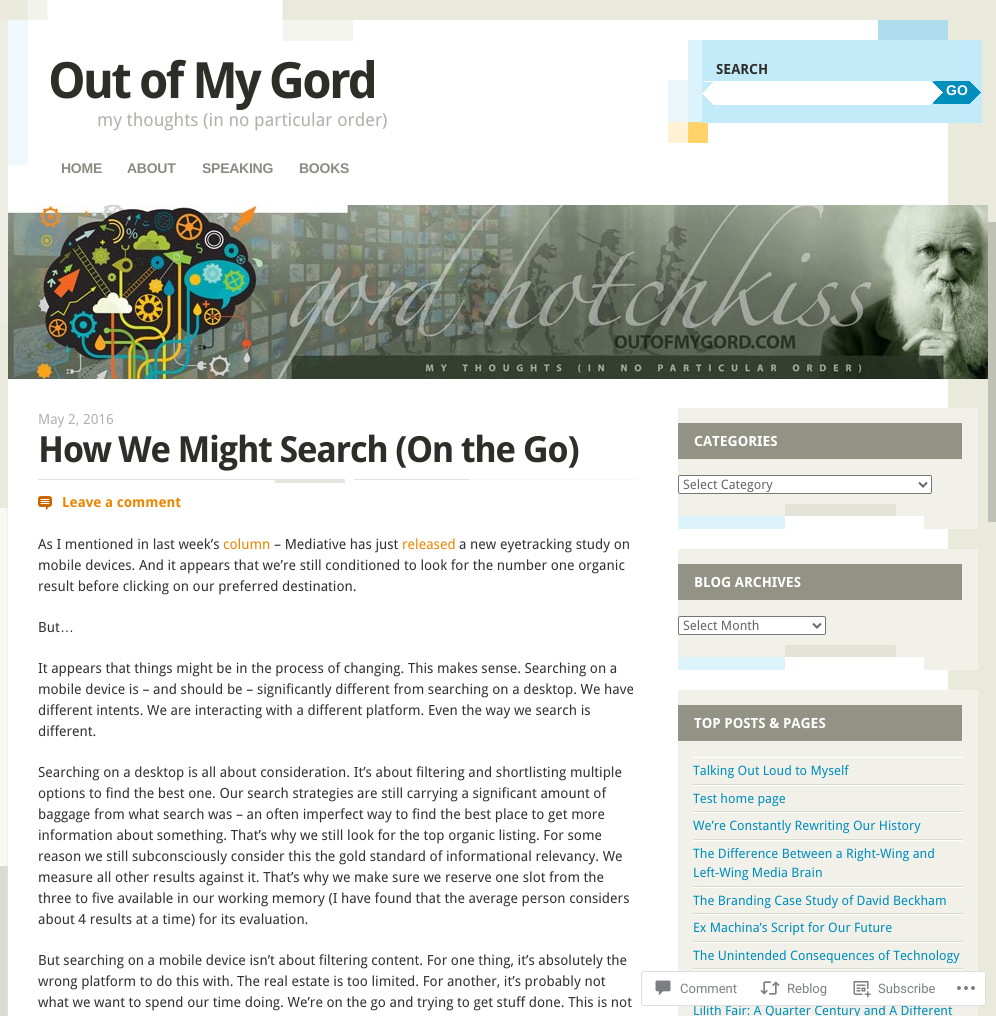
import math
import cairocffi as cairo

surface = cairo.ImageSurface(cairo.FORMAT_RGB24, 996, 1016)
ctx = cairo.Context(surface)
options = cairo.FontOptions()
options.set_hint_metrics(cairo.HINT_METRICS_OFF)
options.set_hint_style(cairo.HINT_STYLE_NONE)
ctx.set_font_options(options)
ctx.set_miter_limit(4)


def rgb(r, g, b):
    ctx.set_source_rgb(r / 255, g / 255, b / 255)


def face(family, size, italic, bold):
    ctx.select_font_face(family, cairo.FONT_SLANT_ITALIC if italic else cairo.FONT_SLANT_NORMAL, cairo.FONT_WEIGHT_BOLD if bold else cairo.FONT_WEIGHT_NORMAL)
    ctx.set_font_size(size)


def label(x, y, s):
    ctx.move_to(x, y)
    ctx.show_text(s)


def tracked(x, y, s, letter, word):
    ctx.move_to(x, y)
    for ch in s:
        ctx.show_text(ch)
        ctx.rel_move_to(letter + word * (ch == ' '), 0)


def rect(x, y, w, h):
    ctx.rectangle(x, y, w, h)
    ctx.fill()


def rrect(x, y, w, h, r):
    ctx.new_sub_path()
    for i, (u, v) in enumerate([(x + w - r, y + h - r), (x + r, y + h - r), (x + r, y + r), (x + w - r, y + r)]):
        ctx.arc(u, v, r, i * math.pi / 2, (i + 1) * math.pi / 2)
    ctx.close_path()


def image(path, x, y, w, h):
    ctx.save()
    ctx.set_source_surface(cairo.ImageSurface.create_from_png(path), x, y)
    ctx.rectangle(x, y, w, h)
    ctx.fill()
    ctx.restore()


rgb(255, 255, 255)
ctx.paint()
image('image0.png', 0, 0, 996, 1016)
rgb(255, 255, 255)
rect(8, 20, 940, 996)
rgb(233, 233, 220)
rect(987, 222, 1, 300)
image('image1.png', 8, 20, 345, 145)
face('Droid Sans', 50, 0, 1)
rgb(46, 46, 41)
tracked(48, 98, 'Out of My Gord', -3, 0)
face('Droid Sans', 18, 0, 0)
rgb(176, 177, 168)
label(97, 126, 'my thoughts (in no particular order)')
face('Liberation Sans', 14, 0, 1)
rgb(138, 139, 130)
tracked(61, 173, 'HOME', -0.25, 0)
tracked(127, 173, 'ABOUT', -0.25, 0)
tracked(202, 173, 'SPEAKING', -0.25, 0)
tracked(299, 173, 'BOOKS', -0.25, 0)
image('image2.png', 668, 20, 280, 123)
rgb(195, 234, 248)
rect(702, 40, 280, 83)
face('Droid Sans', 14, 0, 1)
rgb(46, 46, 41)
label(716, 74, 'SEARCH')
rgb(255, 255, 255)
rrect(702, 81, 230, 24, 3)
ctx.fill()
image('image3.png', 702, 82, 11, 23)
image('image4.png', 932, 81, 49, 23)
face('Liberation Sans', 14, 0, 1)
label(946, 95, 'GO')
image('image5.png', 8, 205, 980, 174)
image('image6.png', 38, 479, 599, 4)
face('Droid Sans', 14, 0, 0)
rgb(177, 177, 177)
label(38, 424, 'May 2, 2016')
face('Droid Sans', 36, 0, 1)
rgb(46, 46, 41)
tracked(38, 462, 'How We Might Search (On the Go)', -1.45, 0)
image('image7.png', 38, 496, 14, 14)
face('Droid Sans', 14, 0, 1)
rgb(236, 133, 0)
label(62, 507, 'Leave a comment')
face('Droid Sans', 14, 0, 0)
rgb(51, 51, 51)
label(38, 549, 'As I mentioned in last week’s')
rgb(236, 133, 0)
label(223, 549, 'column')
rgb(51, 51, 51)
label(274, 549, '– Mediative has just')
rgb(236, 133, 0)
label(402, 549, 'released')
rgb(51, 51, 51)
label(459, 549, 'a new eyetracking study on')
label(38, 570, 'mobile devices. And it appears that we’re still conditioned to look for the number one organic')
label(38, 591, 'result before clicking on our preferred destination.')
label(38, 632, 'But')
face('Liberation Sans', 14, 0, 0)
label(60, 632, '…')
face('Droid Sans', 14, 0, 0)
label(38, 673, 'It appears that things might be in the process of changing. This makes sense. Searching on a')
label(38, 694, 'mobile device is – and should be – significantly different from searching on a desktop. We have')
label(38, 715, 'different intents. We are interacting with a different platform. Even the way we search is')
label(38, 736, 'different.')
label(38, 777, 'Searching on a desktop is all about consideration. It’s about filtering and shortlisting multiple')
label(38, 798, 'options to find the best one. Our search strategies are still carrying a significant amount of')
label(38, 819, 'baggage from what search was – an often imperfect way to find the best place to get more')
label(38, 840, 'information about something. That’s why we still look for the top organic listing. For some')
label(38, 861, 'reason we still subconsciously consider this the gold standard of informational relevancy. We')
label(38, 882, 'measure all other results against it. That’s why we make sure we reserve one slot from the')
label(38, 903, 'three to five available in our working memory (I have found that the average person considers')
label(38, 924, 'about 4 results at a time) for its evaluation.')
label(38, 965, 'But searching on a mobile device isn’t about filtering content. For one thing, it’s absolutely the')
label(38, 986, 'wrong platform to do this with. The real estate is too limited. For another, it’s probably not')
label(38, 1007, 'what we want to spend our time doing. We’re on the go and trying to get stuff done. This is not')
rgb(241, 241, 234)
rect(678, 408, 300, 121)
image('image8.png', 678, 504, 246, 25)
rgb(146, 147, 133)
rect(678, 423, 284, 36)
face('Droid Sans', 14, 0, 1)
rgb(255, 255, 255)
label(694, 446, 'CATEGORIES')
rrect(678.5, 475.5, 253, 18, 1.5)
ctx.fill_preserve()
rgb(118, 118, 118)
ctx.set_line_width(1)
ctx.stroke()
ctx.new_path()
ctx.move_to(919, 482.5)
ctx.line_to(923, 486.5)
ctx.line_to(927, 482.5)
rgb(102, 102, 102)
ctx.set_line_width(2)
ctx.stroke()
face('Droid Sans', 13, 0, 0)
label(683, 489, 'Select Category')
rgb(241, 241, 234)
rect(678, 549, 300, 121)
image('image8.png', 678, 645, 246, 25)
rgb(146, 147, 133)
rect(678, 564, 284, 36)
face('Droid Sans', 14, 0, 1)
rgb(255, 255, 255)
label(694, 587, 'BLOG ARCHIVES')
rrect(678.5, 616.5, 147, 18, 1.5)
ctx.fill_preserve()
rgb(118, 118, 118)
ctx.set_line_width(1)
ctx.stroke()
ctx.new_path()
ctx.move_to(813, 623.5)
ctx.line_to(817, 627.5)
ctx.line_to(821, 623.5)
rgb(102, 102, 102)
ctx.set_line_width(2)
ctx.stroke()
face('Droid Sans', 13, 0, 0)
label(683, 630, 'Select Month')
rgb(241, 241, 234)
rect(678, 690, 300, 326)
rgb(146, 147, 133)
rect(678, 705, 284, 36)
face('Droid Sans', 14, 0, 1)
rgb(255, 255, 255)
label(694, 728, 'TOP POSTS & PAGES')
rect(693, 757, 270, 1)
rgb(218, 218, 205)
rect(693, 784, 270, 1)
face('Droid Sans', 13, 0, 0)
rgb(0, 142, 188)
label(693, 775, 'Talking Out Loud to Myself')
rgb(255, 255, 255)
rect(693, 785, 270, 1)
rgb(218, 218, 205)
rect(693, 811, 270, 1)
rgb(0, 142, 188)
label(693, 803, 'Test home page')
rgb(255, 255, 255)
rect(693, 812, 270, 1)
rgb(218, 218, 205)
rect(693, 839, 270, 1)
rgb(0, 142, 188)
label(693, 830, 'We’re Constantly Rewriting Our History')
rgb(255, 255, 255)
rect(693, 840, 270, 1)
rgb(218, 218, 205)
rect(693, 886, 270, 1)
rgb(0, 142, 188)
label(693, 858, 'The Difference Between a Right-Wing and')
label(693, 877, 'Left-Wing Media Brain')
rgb(255, 255, 255)
rect(693, 887, 270, 1)
rgb(218, 218, 205)
rect(693, 913, 270, 1)
rgb(0, 142, 188)
label(693, 905, 'The Branding Case Study of David Beckham')
rgb(255, 255, 255)
rect(693, 914, 270, 1)
rgb(218, 218, 205)
rect(693, 941, 270, 1)
rgb(0, 142, 188)
label(693, 932, 'Ex Machina’s Script for Our Future')
rgb(255, 255, 255)
rect(693, 942, 270, 1)
rgb(218, 218, 205)
rect(693, 968, 270, 1)
rgb(0, 142, 188)
label(693, 960, 'The Unintended Consequences of Technology')
rgb(255, 255, 255)
rect(693, 969, 270, 1)
rgb(218, 218, 205)
rect(693, 996, 270, 1)
rgb(255, 255, 255)
rect(693, 997, 270, 1)
rgb(0, 142, 188)
label(693, 1015, 'Lilith Fair: A Quarter Century and A Different')
ctx.set_source_rgba(1, 1, 1, 0.98)
rrect(641, 971, 345, 35, 3)
ctx.fill()
rrect(641.5, 971.5, 344, 34, 2.5)
ctx.set_source_rgba(0.863, 0.863, 0.871, 0.98)
ctx.set_line_width(1)
ctx.stroke()
image('image9.png', 655, 980, 16, 16)
face('Roboto', 13, 0, 0)
rgb(123, 127, 132)
label(680, 993, 'Comment')
image('image10.png', 760, 981, 20, 14)
label(787, 993, 'Reblog')
image('image11.png', 853, 981, 18, 17)
label(878, 993, 'Subscribe')
image('image12.png', 957, 986, 18, 4)
surface.write_to_png('render.png')
